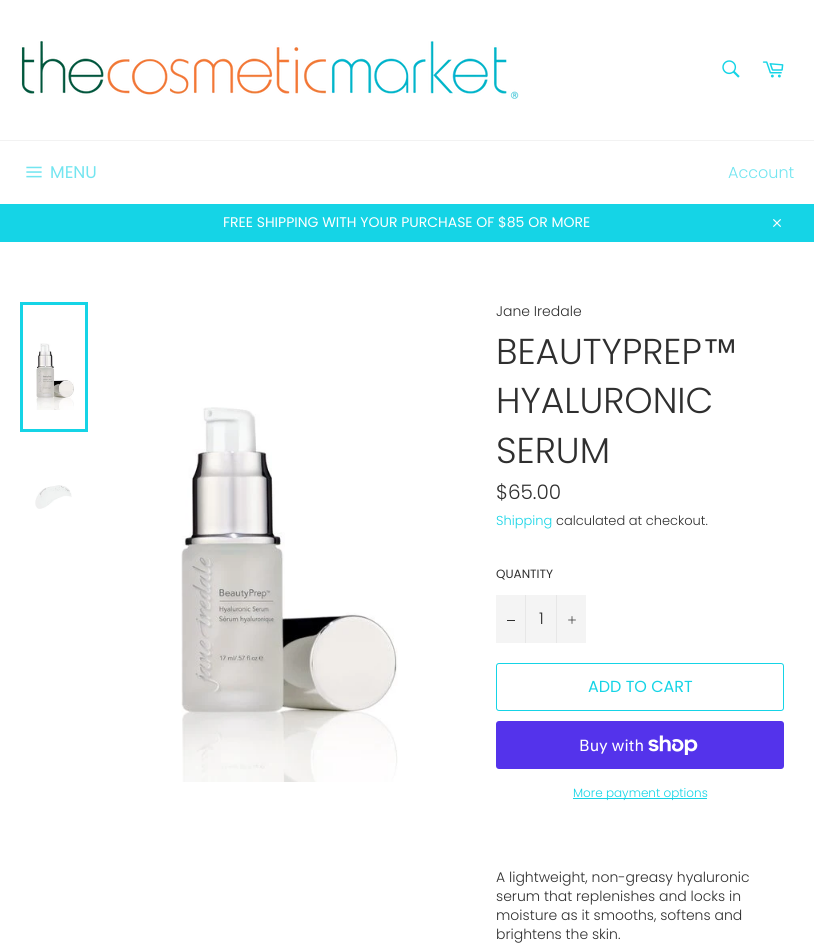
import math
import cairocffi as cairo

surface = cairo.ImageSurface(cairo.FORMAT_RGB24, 814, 944)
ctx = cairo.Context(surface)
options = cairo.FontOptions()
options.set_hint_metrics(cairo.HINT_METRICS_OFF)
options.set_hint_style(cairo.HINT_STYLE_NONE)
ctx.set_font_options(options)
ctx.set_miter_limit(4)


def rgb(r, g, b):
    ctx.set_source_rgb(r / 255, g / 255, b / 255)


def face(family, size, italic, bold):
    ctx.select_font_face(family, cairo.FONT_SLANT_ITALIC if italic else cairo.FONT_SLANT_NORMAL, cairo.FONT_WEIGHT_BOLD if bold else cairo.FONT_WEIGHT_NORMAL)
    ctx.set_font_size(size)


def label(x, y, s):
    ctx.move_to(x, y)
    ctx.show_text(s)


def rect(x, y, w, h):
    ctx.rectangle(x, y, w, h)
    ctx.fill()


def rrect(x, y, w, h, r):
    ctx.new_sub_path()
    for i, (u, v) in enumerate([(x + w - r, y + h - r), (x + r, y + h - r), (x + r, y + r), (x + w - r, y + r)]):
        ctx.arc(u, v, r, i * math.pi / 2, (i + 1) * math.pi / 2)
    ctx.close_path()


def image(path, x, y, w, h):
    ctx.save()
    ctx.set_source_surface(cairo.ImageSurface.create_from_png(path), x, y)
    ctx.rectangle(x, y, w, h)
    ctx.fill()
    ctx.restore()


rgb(255, 255, 255)
ctx.paint()
image('image0.png', 21, 41, 498, 58)
image('image1.png', 722, 60, 18, 18)
image('image2.png', 762, 61, 22, 17)
rgb(242, 242, 242)
rect(0, 140, 814, 1)
image('image3.png', 26, 166, 16, 12)
face('Poppins', 17, 0, 0)
rgb(115, 229, 240)
label(50, 178, 'MENU')
face('Poppins Light', 16, 0, 0)
label(728, 178, 'Account')
rgb(21, 212, 230)
rect(0, 204, 814, 38)
face('Poppins', 14, 0, 0)
rgb(255, 255, 255)
label(223, 227, 'FREE SHIPPING WITH YOUR PURCHASE OF $85 OR MORE')
image('image4.png', 773, 219, 8, 8)
image('image5.png', 36, 343, 38, 67)
ctx.rectangle(21.5, 303.5, 65, 127)
rgb(21, 212, 230)
ctx.set_line_width(3)
ctx.stroke()
image('image6.png', 35, 485, 37, 24)
image('image7.png', 181, 407, 217, 375)
face('Poppins Light', 14, 0, 0)
rgb(47, 47, 47)
label(496, 316, 'Jane Iredale')
face('Poppins Light', 36, 0, 0)
label(496, 364, 'BEAUTYPREP')
face('Liberation Sans', 36, 0, 0)
label(702, 364, '™')
face('Poppins Light', 36, 0, 0)
label(496, 413, 'HYALURONIC')
label(496, 463, 'SERUM')
face('Poppins Light', 20, 0, 0)
label(496, 499, '$65.00')
face('Poppins Light', 13, 0, 0)
rgb(21, 212, 230)
label(496, 525, 'Shipping')
rgb(47, 47, 47)
label(556, 525, 'calculated at checkout.')
face('Poppins', 12, 0, 0)
label(496, 578, 'QUANTITY')
rgb(244, 244, 244)
rect(496, 595, 90, 48)
rgb(231, 231, 231)
rect(525, 595, 1, 48)
rgb(47, 47, 47)
rect(507, 620, 8, 1)
face('Poppins Light', 16, 0, 0)
label(539, 624, '1')
rgb(231, 231, 231)
rect(556, 595, 1, 48)
image('image8.png', 568, 616, 8, 8)
rrect(496.5, 663.5, 287, 47, 2.5)
rgb(21, 212, 230)
ctx.set_line_width(1)
ctx.stroke()
face('Poppins', 16, 0, 0)
label(588, 692, 'ADD TO CART')
rgb(84, 51, 235)
rrect(496, 721, 288, 48, 3)
ctx.fill()
face('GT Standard', 16, 0, 0)
rgb(255, 255, 255)
label(579, 751, 'Buy with')
image('image9.png', 648, 735, 50, 20)
rgb(21, 212, 230)
rect(573, 798, 134, 1)
face('Poppins Light', 12, 0, 0)
label(573, 797, 'More payment options')
face('Poppins Light', 14, 0, 0)
rgb(47, 47, 47)
label(496, 882, 'A lightweight, non-greasy hyaluronic')
label(496, 901, 'serum that replenishes and locks in')
label(496, 920, 'moisture as it smooths, softens and')
label(496, 939, 'brightens the skin.')
surface.write_to_png('render.png')
